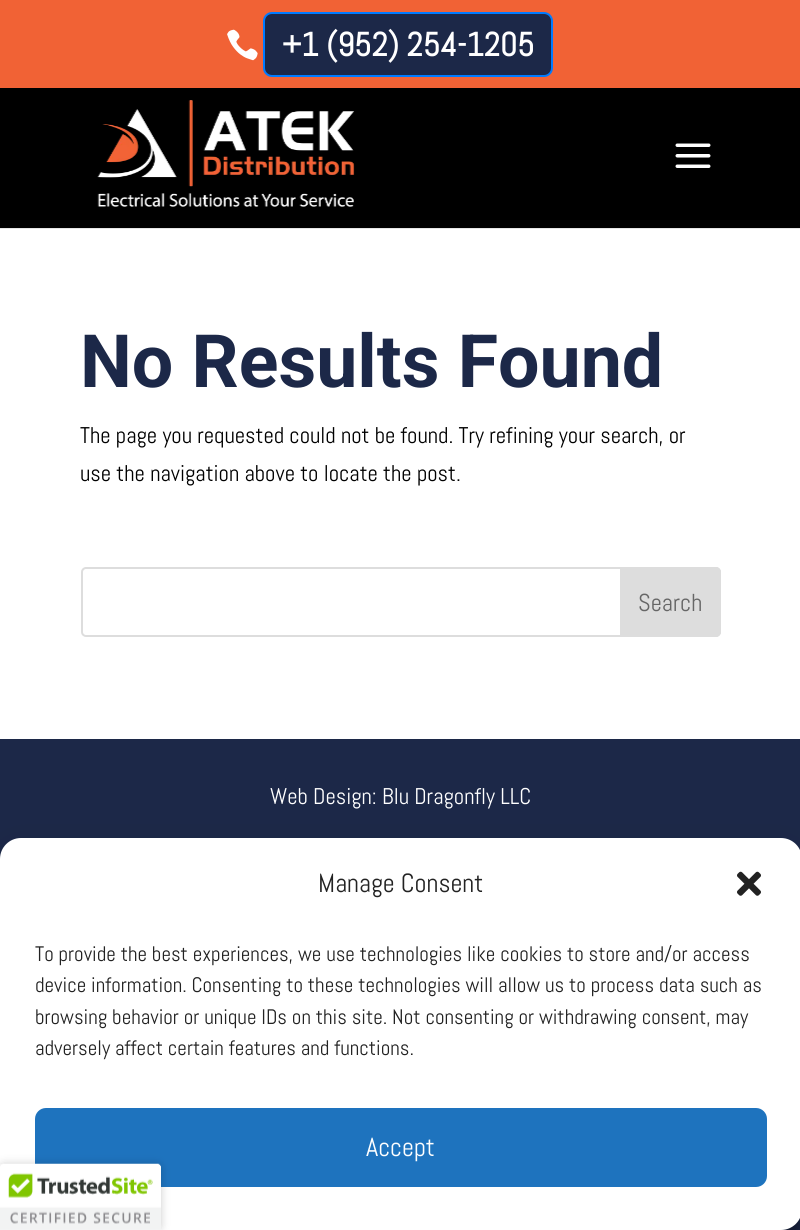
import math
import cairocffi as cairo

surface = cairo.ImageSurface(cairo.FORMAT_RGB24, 800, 1230)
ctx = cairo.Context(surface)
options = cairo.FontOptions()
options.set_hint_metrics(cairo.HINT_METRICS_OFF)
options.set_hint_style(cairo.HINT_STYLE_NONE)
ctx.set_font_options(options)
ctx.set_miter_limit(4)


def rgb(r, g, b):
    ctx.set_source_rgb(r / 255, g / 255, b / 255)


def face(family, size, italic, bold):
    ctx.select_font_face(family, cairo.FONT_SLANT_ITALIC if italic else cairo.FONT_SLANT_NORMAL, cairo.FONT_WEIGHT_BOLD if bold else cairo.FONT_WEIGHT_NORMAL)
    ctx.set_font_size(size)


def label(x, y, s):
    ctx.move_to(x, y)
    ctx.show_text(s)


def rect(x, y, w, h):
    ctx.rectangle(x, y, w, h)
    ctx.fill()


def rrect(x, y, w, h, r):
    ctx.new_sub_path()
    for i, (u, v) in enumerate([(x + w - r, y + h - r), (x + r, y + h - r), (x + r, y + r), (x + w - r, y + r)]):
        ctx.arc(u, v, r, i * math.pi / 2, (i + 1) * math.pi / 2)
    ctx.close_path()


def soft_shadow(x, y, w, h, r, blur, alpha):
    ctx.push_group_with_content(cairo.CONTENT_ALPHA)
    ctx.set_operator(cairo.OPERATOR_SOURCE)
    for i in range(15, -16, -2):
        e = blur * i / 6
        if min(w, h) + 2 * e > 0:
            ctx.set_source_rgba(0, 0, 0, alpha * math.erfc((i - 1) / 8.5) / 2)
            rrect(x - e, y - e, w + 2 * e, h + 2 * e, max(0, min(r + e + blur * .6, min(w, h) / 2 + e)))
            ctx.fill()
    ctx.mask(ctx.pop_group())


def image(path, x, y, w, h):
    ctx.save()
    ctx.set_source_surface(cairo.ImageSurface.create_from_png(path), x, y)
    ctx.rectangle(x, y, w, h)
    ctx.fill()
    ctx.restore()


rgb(255, 255, 255)
ctx.paint()
rgb(241, 98, 53)
rect(0, 0, 800, 88)
image('image0.png', 227, 29, 31, 32)
rgb(28, 40, 72)
rrect(264, 13, 288, 63, 8)
ctx.fill_preserve()
rgb(0, 123, 255)
ctx.stroke()
face('Abel', 33.25, 0, 1)
rgb(255, 255, 255)
label(282, 56, '+1 (952) 254-1205')
rgb(230, 230, 230)
ctx.new_path()
ctx.move_to(0, 228)
ctx.line_to(0, 229)
ctx.line_to(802, 229)
ctx.line_to(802, 89)
ctx.line_to(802, 228)
ctx.close_path()
ctx.fill()
rgb(0, 0, 0)
rect(0, 88, 800, 140)
image('image1.png', 97, 100, 258, 107)
image('image2.png', 675, 143, 36, 25)
face('Roboto', 73.5, 0, 1)
rgb(28, 40, 72)
label(80, 387, 'No Results Found')
face('Abel', 22.75, 0, 0)
rgb(0, 0, 0)
label(80, 443, 'The page you requested could not be found. Try refining your search, or')
label(80, 481, 'use the navigation above to locate the post.')
rrect(82, 568, 638, 68, 4)
rgb(221, 221, 221)
ctx.stroke()
ctx.new_path()
ctx.move_to(621, 568)
ctx.line_to(716, 568)
ctx.curve_to(718, 568, 720, 570, 720, 572)
ctx.line_to(720, 632)
ctx.curve_to(720, 634, 718, 636, 716, 636)
ctx.line_to(621, 636)
ctx.close_path()
ctx.fill_preserve()
ctx.stroke()
face('Abel', 24.5, 0, 0)
rgb(102, 102, 102)
label(638, 611, 'Search')
rgb(28, 40, 72)
rect(0, 739, 800, 491)
face('Abel', 22.75, 0, 0)
rgb(255, 255, 255)
label(270, 804, 'Web Design: Blu Dragonfly LLC')
rgb(0, 0, 0)
soft_shadow(0, 849, 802, 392, 21, 5, 0.23)
soft_shadow(0, 856, 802, 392, 21, 17.5, 0.19)
rgb(255, 255, 255)
rrect(0, 838, 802, 392, 21)
ctx.fill()
face('Abel', 26.25, 0, 0)
rgb(34, 34, 34)
label(318, 892, 'Manage Consent')
image('image3.png', 737, 871, 24, 25)
face('Abel', 21, 0, 0)
label(35, 961, 'To provide the best experiences, we use technologies like cookies to store and/or access')
label(35, 992, 'device information. Consenting to these technologies will allow us to process data such as')
label(35, 1024, 'browsing behavior or unique IDs on this site. Not consenting or withdrawing consent, may')
label(35, 1055, 'adversely affect certain features and functions.')
rgb(30, 115, 190)
rrect(36, 1109, 730, 77, 10)
ctx.fill_preserve()
ctx.stroke()
face('Abel', 26.25, 0, 0)
rgb(255, 255, 255)
label(366, 1156, 'Accept')
rgb(0, 0, 0)
soft_shadow(0, 1164, 161, 66, 4, 4.5, 0.2)
rgb(255, 255, 255)
ctx.new_path()
ctx.move_to(0, 1164)
ctx.line_to(157, 1164)
ctx.curve_to(159, 1164, 161, 1166, 161, 1168)
ctx.line_to(161, 1230)
ctx.line_to(0, 1230)
ctx.close_path()
ctx.fill()
image('image4.png', 0, 1163, 161, 67)
surface.write_to_png('render.png')
